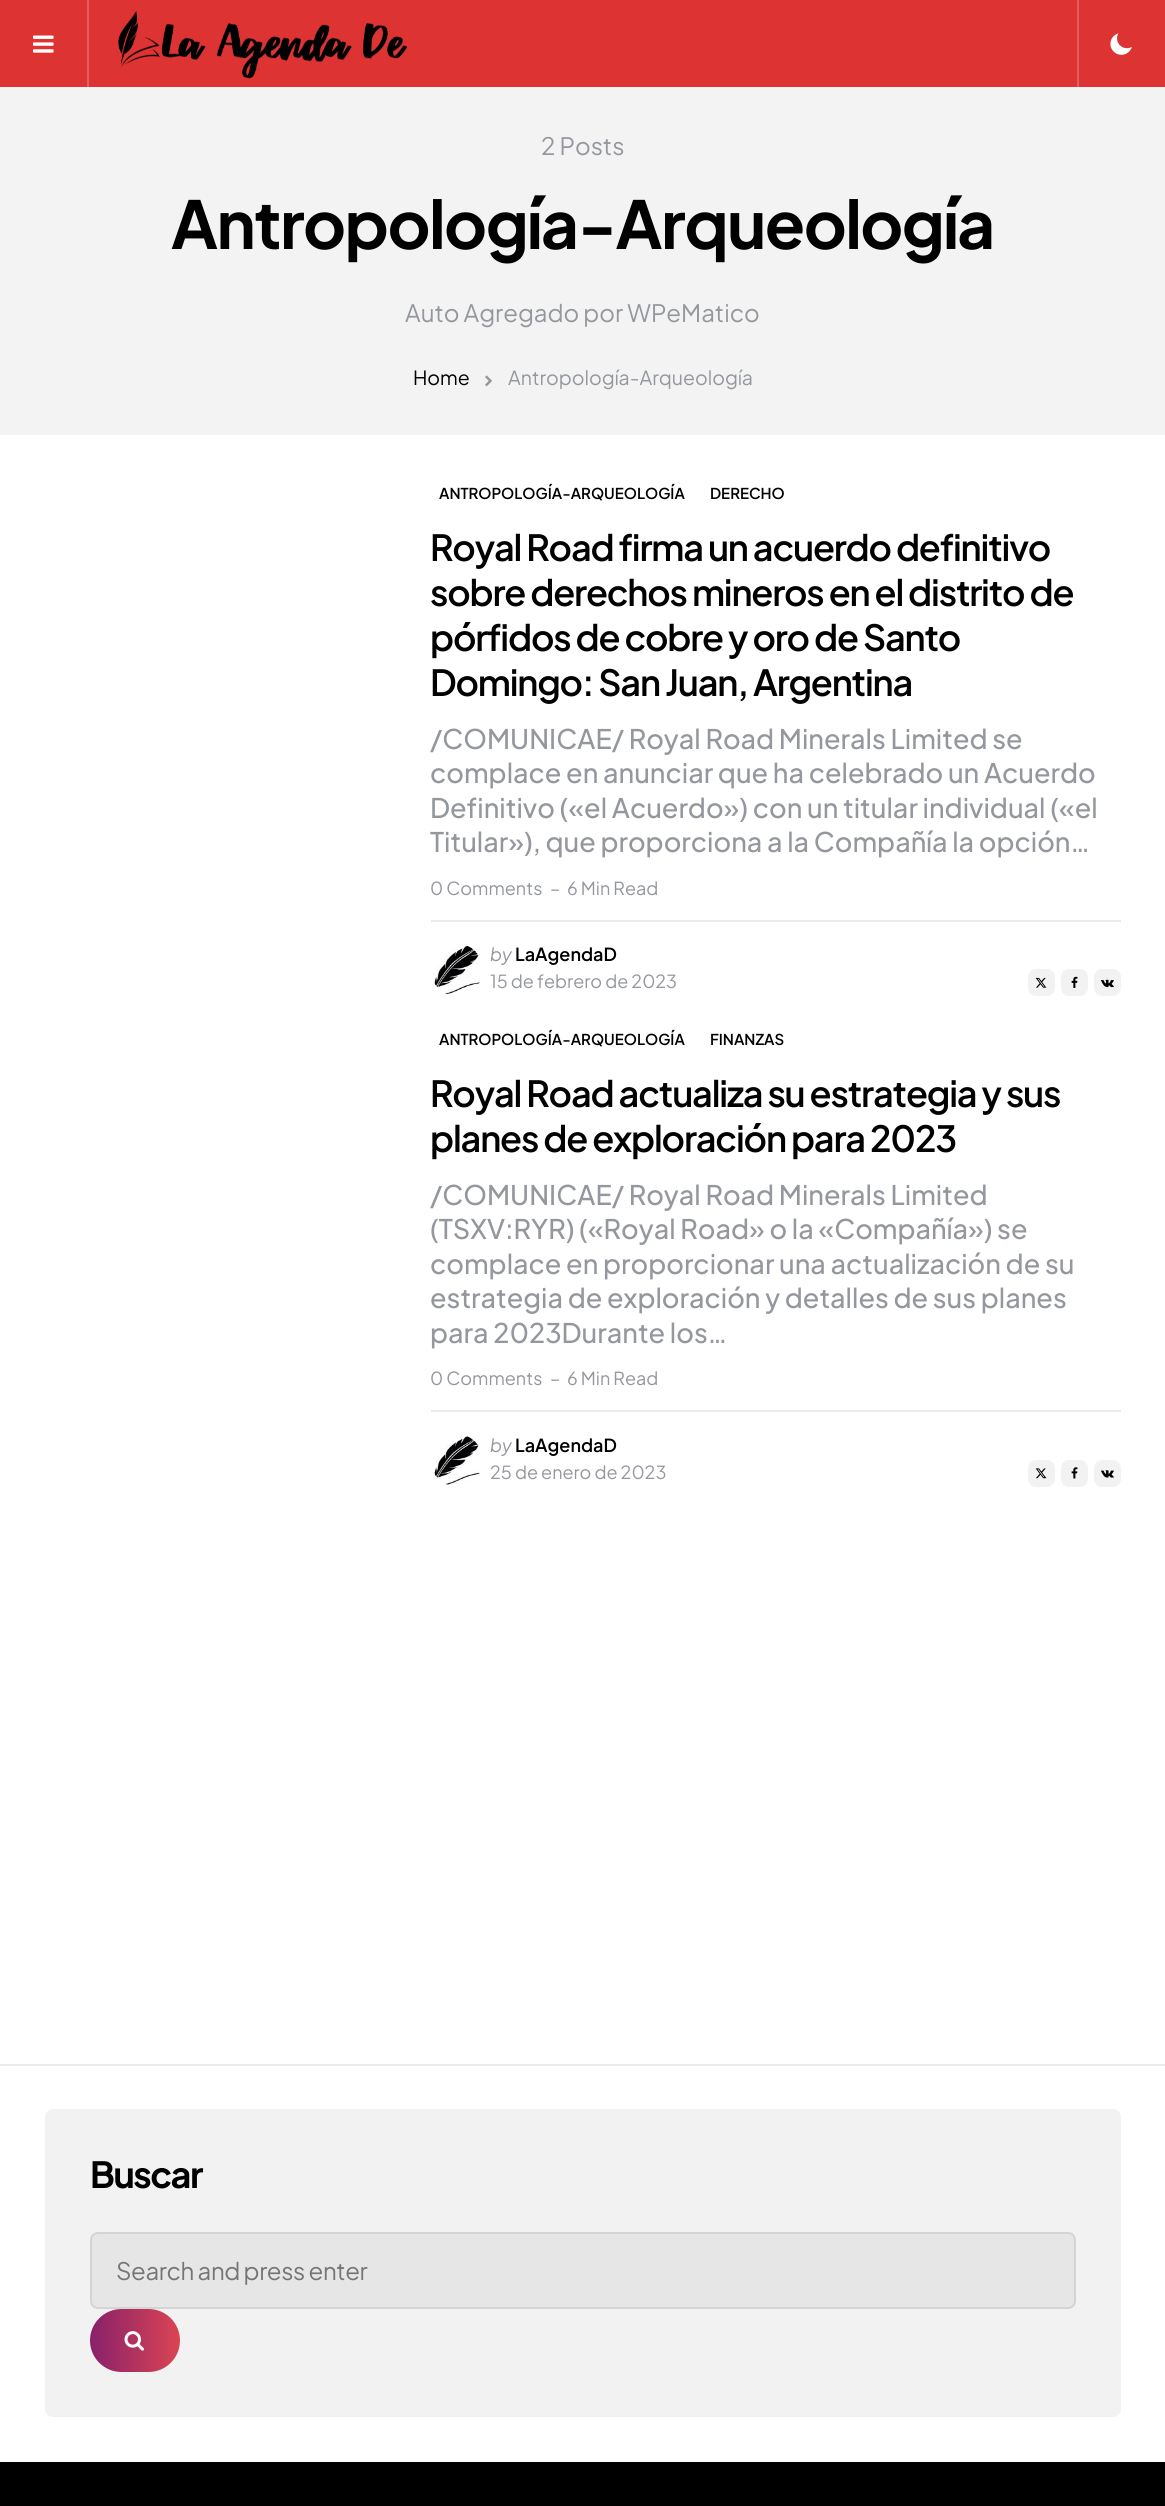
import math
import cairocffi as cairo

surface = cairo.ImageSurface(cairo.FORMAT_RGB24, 1165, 2506)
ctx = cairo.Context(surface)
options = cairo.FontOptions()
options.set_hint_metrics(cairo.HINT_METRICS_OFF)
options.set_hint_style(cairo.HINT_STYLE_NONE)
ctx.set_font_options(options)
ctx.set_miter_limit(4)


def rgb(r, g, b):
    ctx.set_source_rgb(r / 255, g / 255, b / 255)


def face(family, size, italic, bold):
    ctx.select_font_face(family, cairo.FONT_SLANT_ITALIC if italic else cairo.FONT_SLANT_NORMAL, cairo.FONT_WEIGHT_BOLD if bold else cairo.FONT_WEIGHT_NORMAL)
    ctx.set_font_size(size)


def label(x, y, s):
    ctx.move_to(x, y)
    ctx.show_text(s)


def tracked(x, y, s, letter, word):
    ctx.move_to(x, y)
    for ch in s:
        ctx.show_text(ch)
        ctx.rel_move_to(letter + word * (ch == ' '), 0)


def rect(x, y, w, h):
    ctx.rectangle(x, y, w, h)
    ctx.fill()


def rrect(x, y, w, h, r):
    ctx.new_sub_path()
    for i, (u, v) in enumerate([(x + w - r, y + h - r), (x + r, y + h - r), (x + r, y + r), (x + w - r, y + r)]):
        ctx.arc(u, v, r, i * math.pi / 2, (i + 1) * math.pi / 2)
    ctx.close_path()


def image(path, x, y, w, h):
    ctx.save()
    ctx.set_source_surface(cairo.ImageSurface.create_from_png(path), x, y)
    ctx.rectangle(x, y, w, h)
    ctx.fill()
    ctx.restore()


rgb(255, 255, 255)
ctx.paint()
rgb(221, 51, 51)
rect(0, 0, 1165, 87)
rgb(228, 92, 92)
rect(87, 0, 2, 87)
image('image0.png', 33, 35, 21, 18)
image('image1.png', 118, 11, 289, 68)
rect(1077, 0, 2, 87)
image('image2.png', 1110, 33, 22, 22)
rgb(243, 243, 243)
rect(0, 87, 1165, 348)
face('Plus Jakarta Sans', 24, 0, 0)
rgb(148, 151, 158)
label(541, 155, '2 Posts')
face('Plus Jakarta Sans', 66, 0, 1)
rgb(0, 0, 0)
tracked(171, 249, 'Antropología-Arqueología', -1.5, 0)
face('Plus Jakarta Sans', 24, 0, 0)
rgb(148, 151, 158)
label(405, 322, 'Auto Agregado por WPeMatico')
face('Plus Jakarta Sans', 19.5, 0, 0)
rgb(0, 0, 0)
label(413, 385, 'Home')
image('image3.png', 485, 375, 7, 12)
rgb(148, 151, 158)
label(508, 385, 'Antropología-Arqueología')
face('Plus Jakarta Sans SemiBold', 15, 0, 0)
rgb(0, 0, 0)
label(439, 499, 'ANTROPOLOGÍA-ARQUEOLOGÍA')
label(710, 499, 'DERECHO')
face('Plus Jakarta Sans SemiBold', 36, 0, 0)
tracked(430, 561, 'Royal Road firma un acuerdo definitivo', -1.2, 0)
tracked(430, 606, 'sobre derechos mineros en el distrito de', -1.2, 0)
tracked(430, 651, 'pórfidos de cobre y oro de Santo', -1.2, 0)
tracked(430, 696, 'Domingo: San Juan, Argentina', -1.2, 0)
face('Plus Jakarta Sans Medium', 27, 0, 0)
rgb(148, 151, 158)
label(430, 749, '/COMUNICAE/ Royal Road Minerals Limited se')
label(430, 783, 'complace en anunciar que ha celebrado un Acuerdo')
label(430, 818, 'Definitivo («el Acuerdo») con un titular individual («el')
label(430, 852, 'Titular»), que proporciona a la Compañía la opción…')
face('Plus Jakarta Sans', 18, 0, 0)
label(430, 895, '0 Comments')
label(550, 895, '–')
label(567, 895, '6 Min Read')
rgb(235, 235, 235)
rect(431, 920, 690, 2)
image('image4.png', 434, 944, 47, 50)
face('Plus Jakarta Sans', 18, 1, 0)
rgb(148, 151, 158)
label(490, 961, 'by')
face('Plus Jakarta Sans SemiBold', 18, 0, 0)
rgb(0, 0, 0)
label(515, 961, 'LaAgendaD')
face('Plus Jakarta Sans', 18, 0, 0)
rgb(148, 151, 158)
label(490, 988, '15 de febrero de 2023')
rgb(242, 242, 242)
rrect(1028, 969, 27, 27, 8)
ctx.fill()
image('image5.png', 1035, 977, 12, 11)
rrect(1061, 969, 27, 27, 8)
ctx.fill()
image('image6.png', 1071, 976, 7, 12)
rrect(1094, 969, 27, 27, 8)
ctx.fill()
image('image7.png', 1101, 979, 13, 9)
face('Plus Jakarta Sans SemiBold', 15, 0, 0)
rgb(0, 0, 0)
label(439, 1045, 'ANTROPOLOGÍA-ARQUEOLOGÍA')
label(710, 1045, 'FINANZAS')
face('Plus Jakarta Sans SemiBold', 36, 0, 0)
tracked(430, 1107, 'Royal Road actualiza su estrategia y sus', -1.2, 0)
tracked(430, 1152, 'planes de exploración para 2023', -1.2, 0)
face('Plus Jakarta Sans Medium', 27, 0, 0)
rgb(148, 151, 158)
label(430, 1205, '/COMUNICAE/ Royal Road Minerals Limited')
label(430, 1239, '(TSXV:RYR) («Royal Road» o la «Compañía») se')
label(430, 1274, 'complace en proporcionar una actualización de su')
label(430, 1308, 'estrategia de exploración y detalles de sus planes')
label(430, 1343, 'para 2023Durante los…')
face('Plus Jakarta Sans', 18, 0, 0)
label(430, 1385, '0 Comments')
label(550, 1385, '–')
label(567, 1385, '6 Min Read')
rgb(235, 235, 235)
rect(431, 1410, 690, 2)
image('image8.png', 434, 1436, 46, 49)
face('Plus Jakarta Sans', 18, 1, 0)
rgb(148, 151, 158)
label(490, 1452, 'by')
face('Plus Jakarta Sans SemiBold', 18, 0, 0)
rgb(0, 0, 0)
label(515, 1452, 'LaAgendaD')
face('Plus Jakarta Sans', 18, 0, 0)
rgb(148, 151, 158)
label(490, 1479, '25 de enero de 2023')
rgb(242, 242, 242)
rrect(1028, 1460, 27, 27, 8)
ctx.fill()
image('image9.png', 1035, 1468, 12, 11)
rrect(1061, 1460, 27, 27, 8)
ctx.fill()
image('image10.png', 1071, 1467, 7, 12)
rrect(1094, 1460, 27, 27, 8)
ctx.fill()
image('image11.png', 1101, 1470, 13, 8)
rgb(235, 235, 235)
rect(0, 2064, 1165, 2)
rgb(242, 242, 242)
rrect(45, 2109, 1076, 308, 8)
ctx.fill()
face('Plus Jakarta Sans', 36, 0, 1)
rgb(0, 0, 0)
tracked(90, 2188, 'Buscar', -1.5, 0)
rgb(230, 230, 230)
rrect(90, 2232, 986, 77, 8)
ctx.fill()
rrect(91, 2233, 984, 75, 7)
ctx.set_source_rgba(0, 0, 0, 0.08)
ctx.stroke()
face('Plus Jakarta Sans', 24, 0, 0)
rgb(117, 117, 117)
tracked(116, 2280, 'Search and press enter', -0.4, 0)
gradient = cairo.LinearGradient(90, 2340, 180, 2340)
gradient.add_color_stop_rgba(0, 0.537, 0.129, 0.42, 1)
gradient.add_color_stop_rgba(1, 0.855, 0.267, 0.325, 1)
ctx.set_source(gradient)
rrect(90, 2309, 90, 63, 31.5)
ctx.fill()
image('image12.png', 124, 2331, 20, 20)
rgb(0, 0, 0)
rect(0, 2462, 1165, 44)
surface.write_to_png('render.png')
